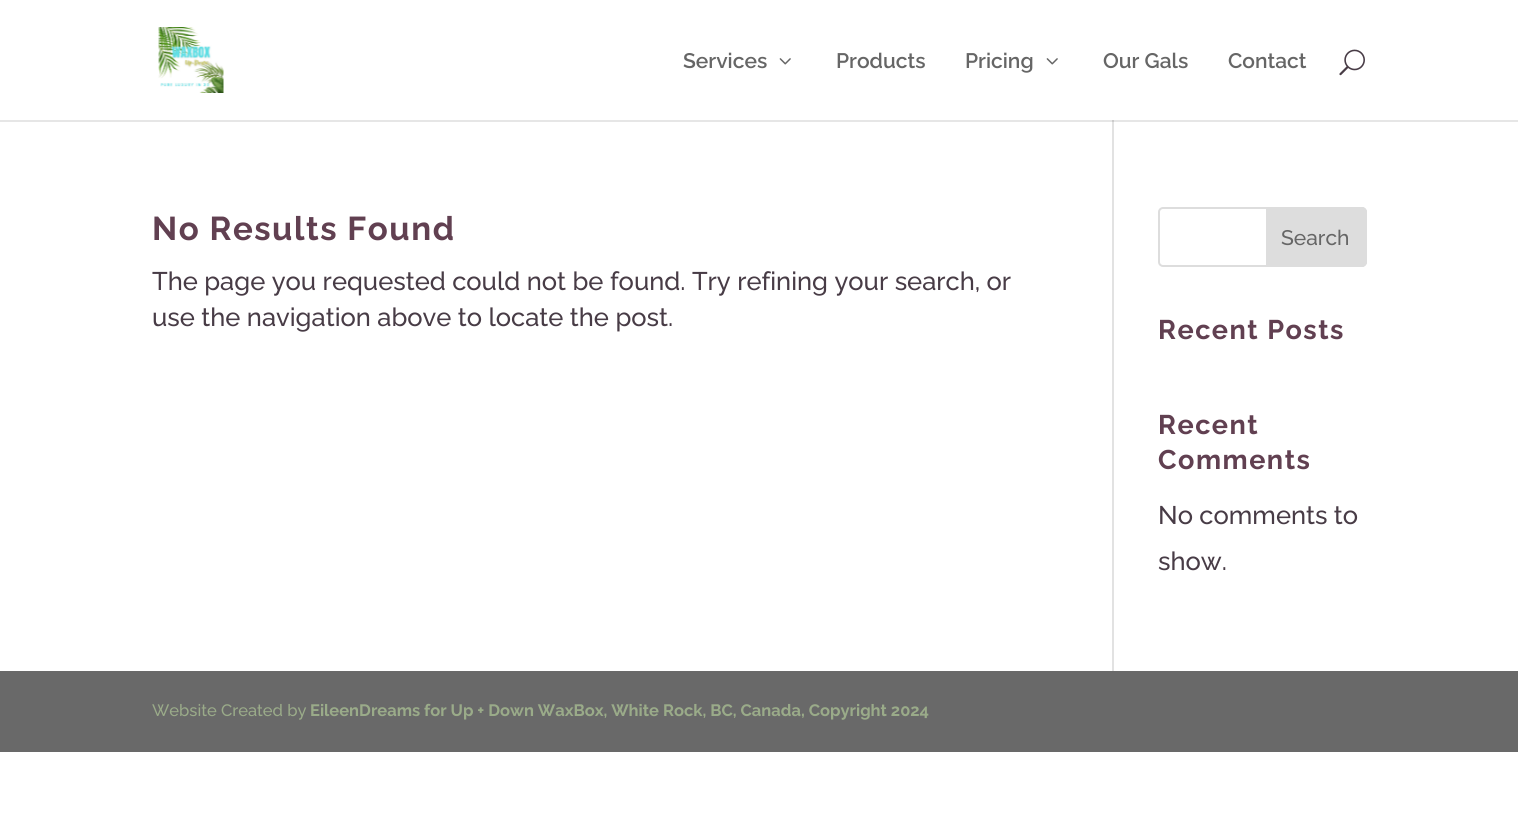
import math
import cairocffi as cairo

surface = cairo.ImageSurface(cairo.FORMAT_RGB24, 1518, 830)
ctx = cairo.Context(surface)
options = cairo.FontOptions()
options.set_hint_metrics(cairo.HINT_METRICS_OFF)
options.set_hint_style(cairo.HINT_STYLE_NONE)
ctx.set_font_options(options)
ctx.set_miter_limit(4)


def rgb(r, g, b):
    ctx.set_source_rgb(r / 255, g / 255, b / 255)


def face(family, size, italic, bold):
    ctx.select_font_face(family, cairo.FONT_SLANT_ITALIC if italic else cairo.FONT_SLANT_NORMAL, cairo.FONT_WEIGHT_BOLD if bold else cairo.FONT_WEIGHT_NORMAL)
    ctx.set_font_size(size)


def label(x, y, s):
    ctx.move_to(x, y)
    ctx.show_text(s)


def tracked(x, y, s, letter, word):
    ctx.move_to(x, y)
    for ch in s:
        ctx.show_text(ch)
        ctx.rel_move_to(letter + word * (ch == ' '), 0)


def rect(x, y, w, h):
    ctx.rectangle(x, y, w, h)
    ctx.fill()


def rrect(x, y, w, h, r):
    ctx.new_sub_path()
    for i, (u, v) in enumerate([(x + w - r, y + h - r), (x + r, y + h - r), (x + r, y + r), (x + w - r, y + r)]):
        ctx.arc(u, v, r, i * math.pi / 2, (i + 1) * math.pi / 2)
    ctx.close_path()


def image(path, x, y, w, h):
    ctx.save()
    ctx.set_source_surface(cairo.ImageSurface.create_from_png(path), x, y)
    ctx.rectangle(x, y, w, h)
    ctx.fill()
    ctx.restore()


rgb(255, 255, 255)
ctx.paint()
rgb(230, 230, 230)
rect(0, 120, 1518, 2)
image('image0.png', 158, 27, 66, 66)
face('Raleway SemiBold', 21, 0, 0)
rgb(102, 102, 102)
label(683, 68, 'Services')
image('image1.png', 779, 58, 12, 7)
label(836, 68, 'Products')
label(965, 68, 'Pricing')
image('image1.png', 1046, 58, 12, 7)
label(1103, 68, 'Our Gals')
label(1228, 68, 'Contact')
image('image2.png', 1339, 49, 26, 27)
rgb(226, 226, 226)
rect(1112, 120, 2, 551)
rgb(203, 203, 203)
rect(1112, 120, 2, 2)
face('Raleway', 33, 0, 1)
rgb(97, 64, 81)
tracked(152, 240, 'No Results Found', 1.5, 0)
face('Raleway Medium', 25.5, 0, 0)
rgb(72, 60, 70)
label(152, 290, 'The page you requested could not be found. Try refining your search, or')
label(152, 326, 'use the navigation above to locate the post.')
rrect(1159, 208, 207, 58, 4)
rgb(221, 221, 221)
ctx.stroke()
ctx.new_path()
ctx.move_to(1267, 208)
ctx.line_to(1362, 208)
ctx.curve_to(1364, 208, 1366, 210, 1366, 212)
ctx.line_to(1366, 262)
ctx.curve_to(1366, 264, 1364, 266, 1362, 266)
ctx.line_to(1267, 266)
ctx.close_path()
ctx.fill_preserve()
ctx.stroke()
face('Raleway Medium', 21, 0, 0)
rgb(102, 102, 102)
label(1281, 245, 'Search')
face('Raleway', 27, 0, 1)
rgb(97, 64, 81)
tracked(1158, 339, 'Recent Posts', 1.5, 0)
tracked(1158, 434, 'Recent', 1.5, 0)
tracked(1158, 469, 'Comments', 1.5, 0)
face('Raleway Medium', 25.5, 0, 0)
rgb(72, 60, 70)
label(1158, 524, 'No comments to')
label(1158, 570, 'show.')
rgb(105, 105, 105)
rect(0, 671, 1518, 81)
face('Raleway Medium', 16.5, 0, 0)
rgb(154, 171, 137)
label(152, 716, 'Website Created by')
face('Raleway', 16.5, 0, 1)
label(310, 716, 'EileenDreams for Up + Down WaxBox, White Rock, BC, Canada, Copyright 2024')
surface.write_to_png('render.png')
